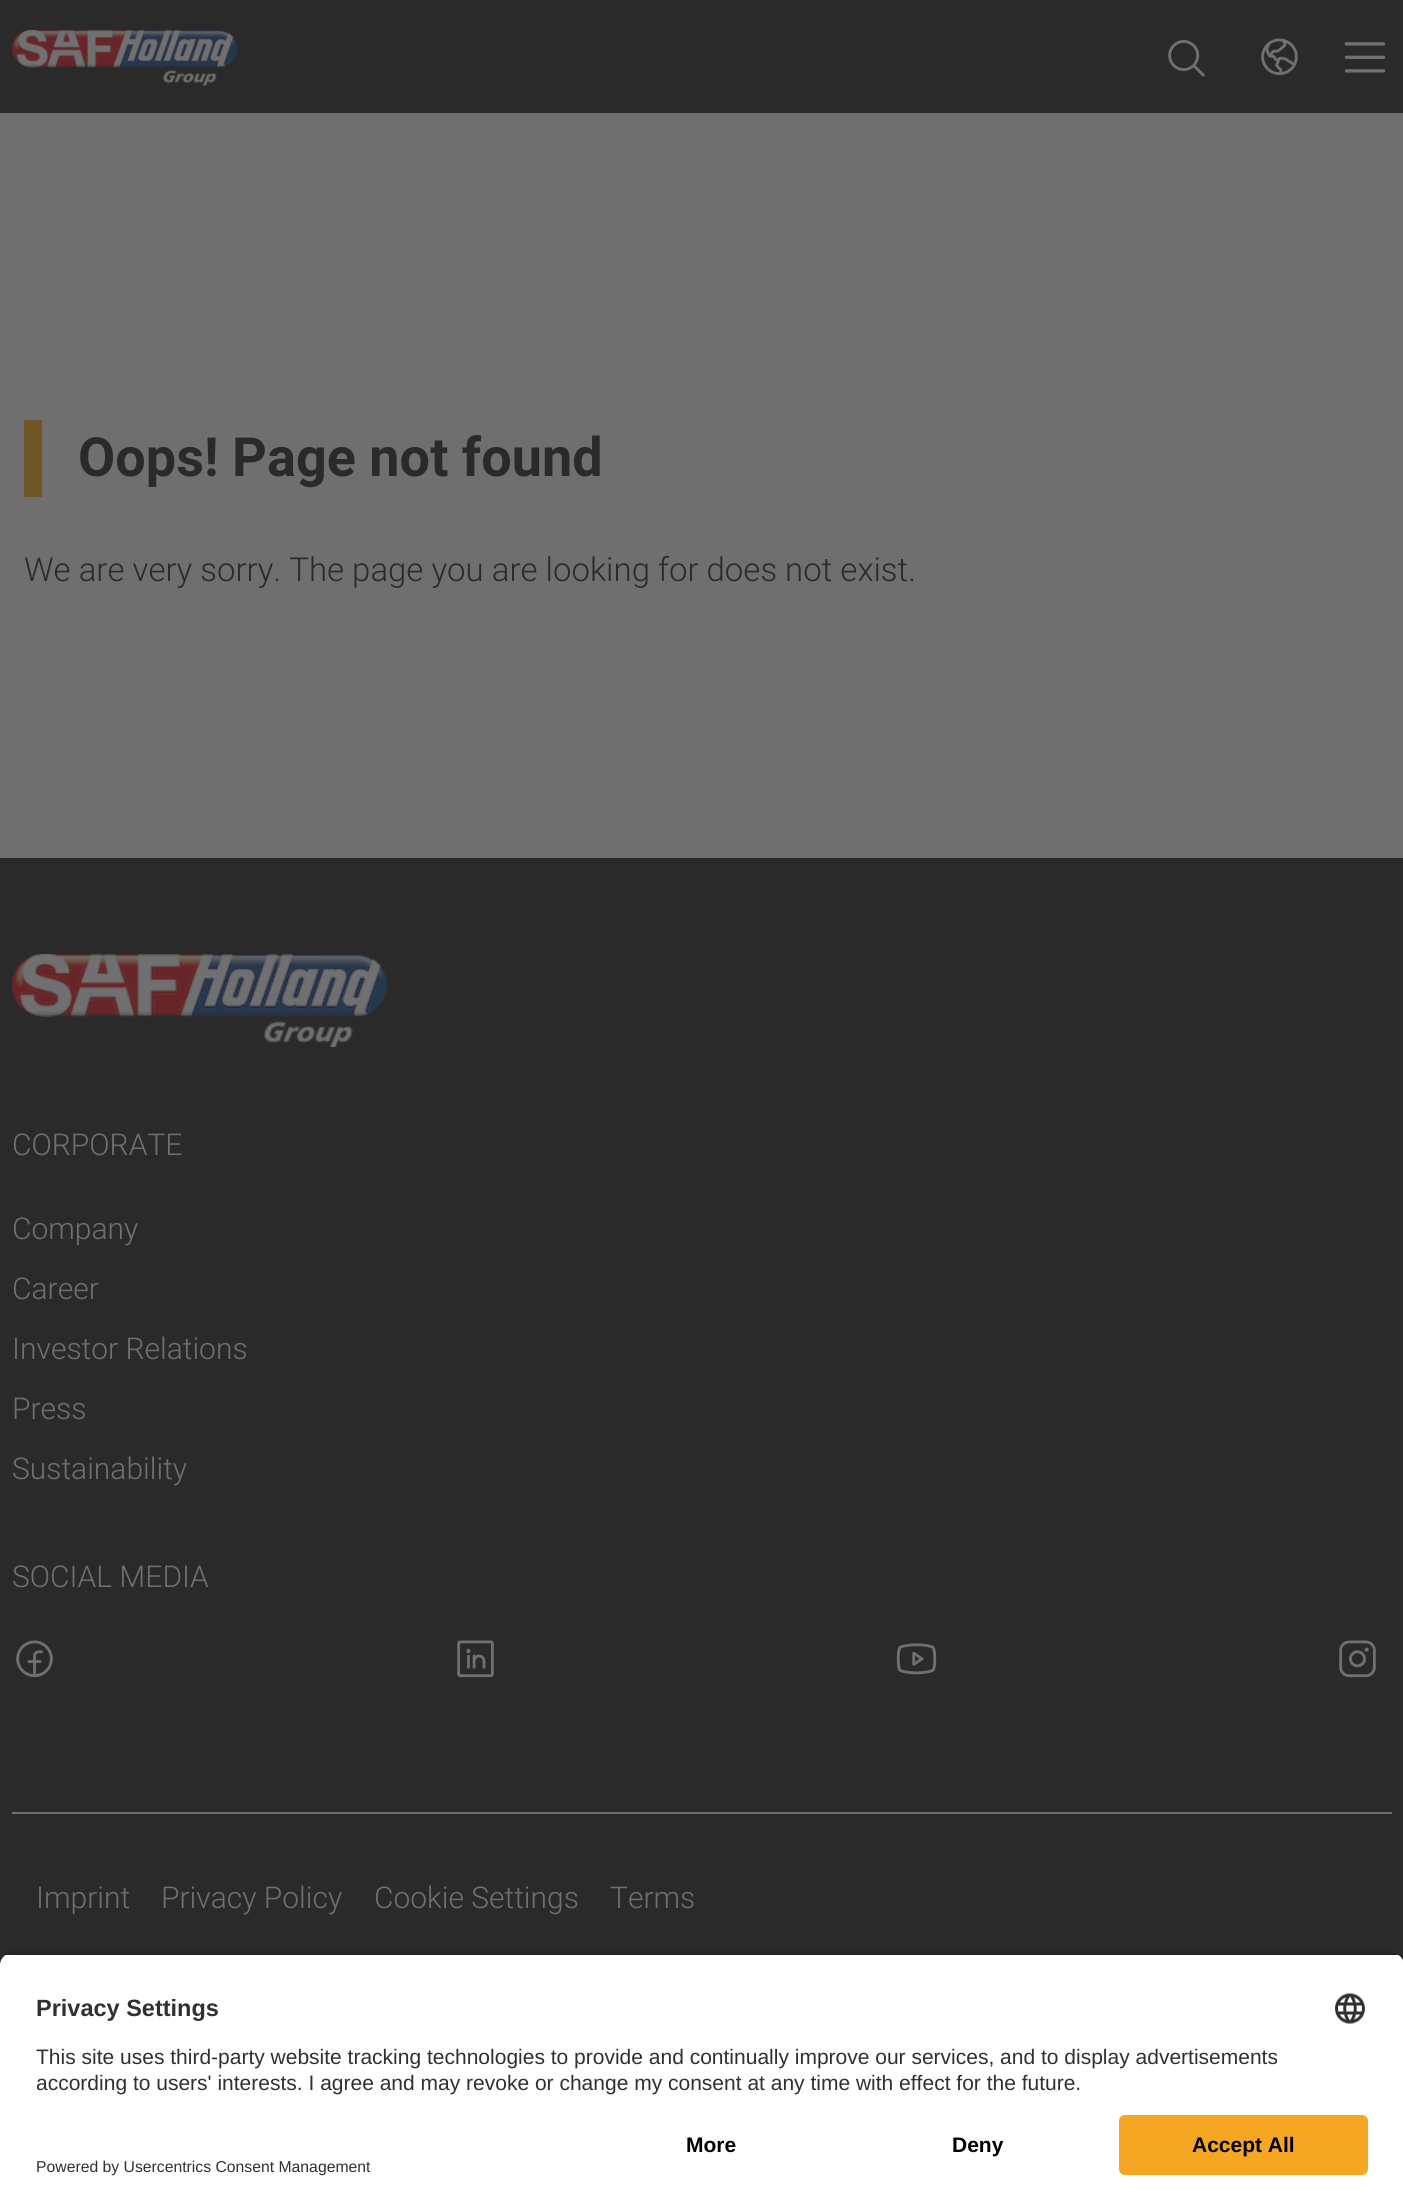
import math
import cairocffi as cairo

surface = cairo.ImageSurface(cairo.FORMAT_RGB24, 1403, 2211)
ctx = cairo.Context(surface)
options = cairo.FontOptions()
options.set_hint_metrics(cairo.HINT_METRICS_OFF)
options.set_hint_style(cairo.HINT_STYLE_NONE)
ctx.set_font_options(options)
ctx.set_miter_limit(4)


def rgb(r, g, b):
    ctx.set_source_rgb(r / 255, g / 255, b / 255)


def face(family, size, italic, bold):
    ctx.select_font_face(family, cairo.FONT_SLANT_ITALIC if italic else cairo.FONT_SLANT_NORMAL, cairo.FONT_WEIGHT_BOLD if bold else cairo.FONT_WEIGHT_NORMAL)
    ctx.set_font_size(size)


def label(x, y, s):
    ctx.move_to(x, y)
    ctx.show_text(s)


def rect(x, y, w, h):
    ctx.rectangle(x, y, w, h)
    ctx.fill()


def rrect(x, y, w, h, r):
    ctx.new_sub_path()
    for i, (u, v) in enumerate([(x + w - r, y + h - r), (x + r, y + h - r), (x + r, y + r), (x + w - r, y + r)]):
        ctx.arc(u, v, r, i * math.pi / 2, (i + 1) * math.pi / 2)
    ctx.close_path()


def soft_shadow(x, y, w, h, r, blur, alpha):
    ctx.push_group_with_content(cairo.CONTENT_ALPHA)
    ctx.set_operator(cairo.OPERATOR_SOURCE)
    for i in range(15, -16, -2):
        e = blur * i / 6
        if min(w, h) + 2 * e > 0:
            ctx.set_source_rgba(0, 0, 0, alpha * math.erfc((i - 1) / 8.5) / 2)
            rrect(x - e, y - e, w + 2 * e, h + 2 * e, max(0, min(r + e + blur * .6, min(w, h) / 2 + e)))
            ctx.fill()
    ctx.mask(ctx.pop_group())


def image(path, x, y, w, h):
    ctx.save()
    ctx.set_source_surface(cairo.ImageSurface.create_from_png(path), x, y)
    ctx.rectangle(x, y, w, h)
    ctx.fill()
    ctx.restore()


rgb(111, 111, 111)
ctx.paint()
rgb(42, 42, 42)
rect(0, 0, 1403, 113)
image('image0.png', 12, 30, 225, 56)
image('image1.png', 1168, 40, 37, 37)
image('image2.png', 1261, 38, 37, 38)
image('image3.png', 1344, 42, 42, 31)
rgb(110, 85, 36)
rect(24, 420, 18, 77)
face('Roboto', 54, 0, 1)
rgb(42, 42, 42)
label(78, 476, 'Oops! Page not found')
face('Roboto Light', 33, 0, 0)
label(24, 581, 'We are very sorry. The page you are looking for does not exist.')
rect(0, 858, 1403, 1107)
image('image4.png', 12, 954, 375, 93)
face('Roboto Light', 30, 0, 0)
rgb(112, 112, 112)
label(12, 1155, 'CORPORATE')
label(12, 1239, 'Company')
label(12, 1299, 'Career')
label(12, 1359, 'Investor Relations')
label(12, 1419, 'Press')
label(12, 1479, 'Sustainability')
label(12, 1587, 'SOCIAL MEDIA')
image('image5.png', 16, 1640, 37, 38)
image('image6.png', 457, 1640, 37, 38)
image('image7.png', 896, 1643, 41, 32)
image('image8.png', 1339, 1640, 37, 38)
rect(12, 1812, 1380, 2)
label(36, 1908, 'Imprint')
label(161, 1908, 'Privacy Policy')
label(374, 1908, 'Cookie Settings')
label(610, 1908, 'Terms')
rgb(0, 0, 0)
soft_shadow(0, 1958, 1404, 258, 12, 5, 0.8)
ctx.save()
ctx.new_path()
ctx.move_to(12, 1953)
ctx.line_to(1392, 1953)
ctx.curve_to(1398.5, 1953, 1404, 1958.5, 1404, 1965)
ctx.line_to(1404, 2103)
ctx.line_to(0, 2103)
ctx.line_to(0, 1965)
ctx.curve_to(0, 1958.5, 5.5, 1953, 12, 1953)
ctx.close_path()
ctx.clip()
rgb(255, 255, 255)
rect(0, 1955, 1403, 148)
ctx.restore()
face('Liberation Sans', 23.5, 0, 1)
rgb(48, 48, 48)
label(36, 2016, 'Privacy Settings')
image('image9.png', 1335, 1993, 30, 31)
face('Liberation Sans', 21, 0, 0)
label(36, 2064, 'This site uses third-party website tracking technologies to provide and continually improve our services, and to display advertisements')
label(36, 2090, 'according to users\' interests. I agree and may revoke or change my consent at any time with effect for the future.')
rgb(255, 255, 255)
rect(0, 2103, 1403, 108)
face('Liberation Sans', 21, 0, 1)
rgb(0, 0, 0)
label(686, 2152, 'More')
label(952, 2152, 'Deny')
rgb(245, 166, 35)
rrect(1119, 2115, 249, 60, 6)
ctx.fill()
rgb(0, 0, 0)
label(1192, 2152, 'Accept All')
face('Liberation Sans', 15.75, 0, 0)
rgb(48, 48, 48)
label(36, 2172, 'Powered by Usercentrics Consent Management')
surface.write_to_png('render.png')
